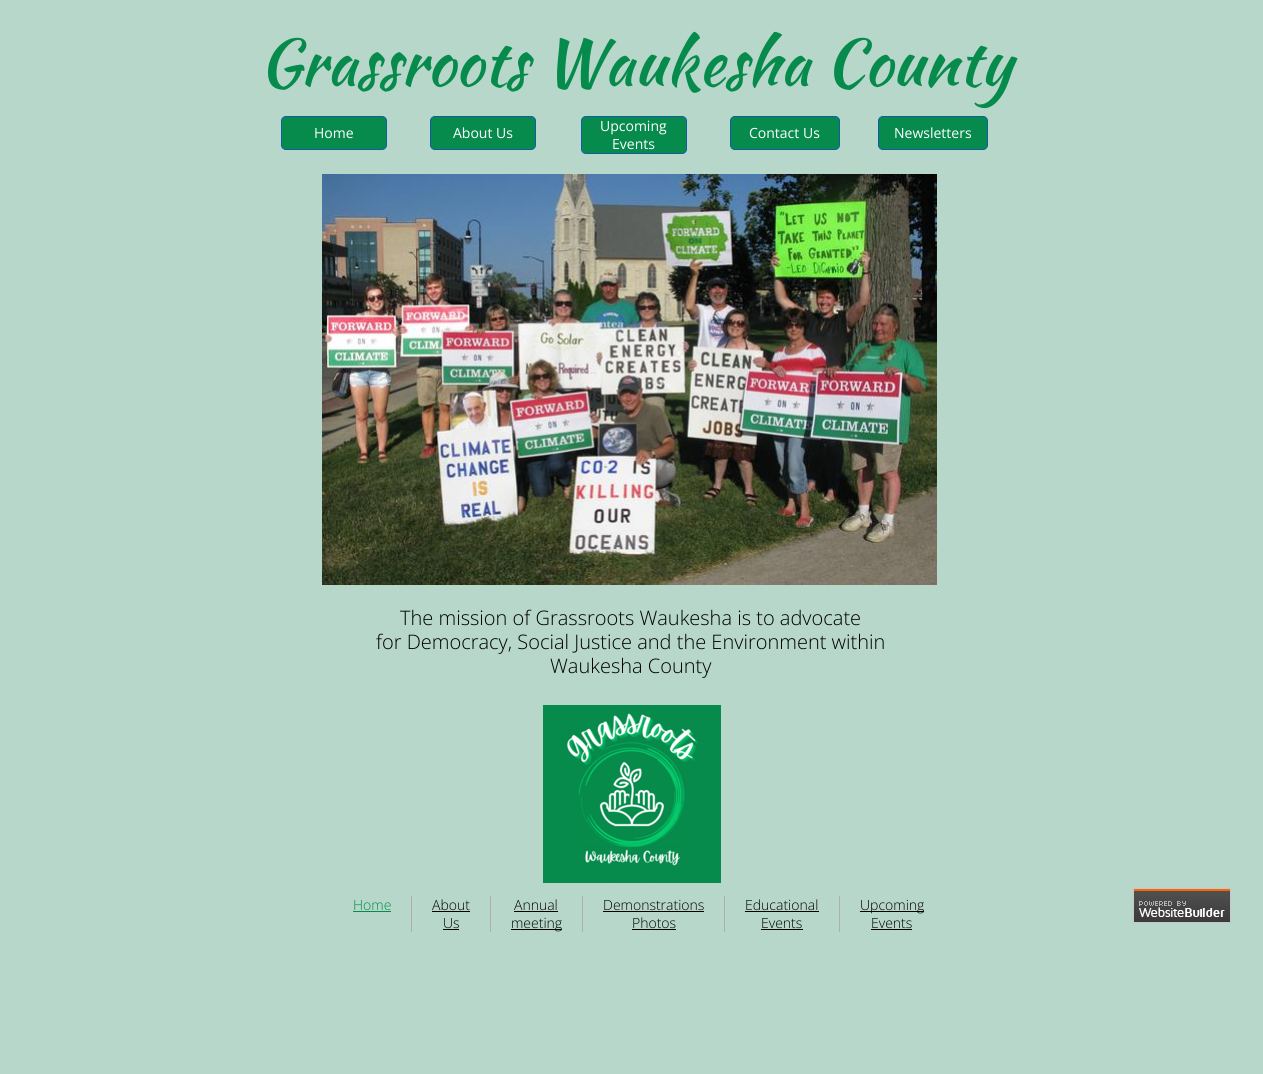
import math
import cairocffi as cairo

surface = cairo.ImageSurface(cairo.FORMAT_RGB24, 1263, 1074)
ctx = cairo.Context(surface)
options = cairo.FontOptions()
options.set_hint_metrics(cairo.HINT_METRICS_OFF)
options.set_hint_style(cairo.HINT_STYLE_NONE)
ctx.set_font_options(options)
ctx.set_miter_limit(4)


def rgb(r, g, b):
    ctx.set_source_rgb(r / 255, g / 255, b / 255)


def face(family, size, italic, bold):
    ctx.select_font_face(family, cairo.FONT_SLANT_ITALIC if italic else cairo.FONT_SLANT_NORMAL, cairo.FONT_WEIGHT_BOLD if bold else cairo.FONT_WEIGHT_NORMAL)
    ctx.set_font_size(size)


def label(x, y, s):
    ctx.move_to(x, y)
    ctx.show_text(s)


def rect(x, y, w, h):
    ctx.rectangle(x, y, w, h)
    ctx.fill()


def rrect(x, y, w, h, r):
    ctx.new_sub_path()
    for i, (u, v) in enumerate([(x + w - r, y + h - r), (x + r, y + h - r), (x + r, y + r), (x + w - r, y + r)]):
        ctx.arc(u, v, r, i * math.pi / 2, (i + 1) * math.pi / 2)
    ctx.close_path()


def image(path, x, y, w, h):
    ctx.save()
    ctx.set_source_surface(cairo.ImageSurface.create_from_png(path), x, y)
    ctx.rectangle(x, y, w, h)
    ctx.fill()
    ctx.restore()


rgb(183, 215, 202)
ctx.paint()
face('Kaushan Script', 64, 0, 0)
rgb(6, 139, 76)
label(259, 85, 'Grassroots Waukesha County')
rrect(281.5, 116.5, 105, 33, 4.5)
ctx.fill_preserve()
rgb(18, 92, 166)
ctx.set_line_width(1)
ctx.stroke()
face('Open Sans', 14, 0, 0)
rgb(255, 255, 255)
label(314, 138, 'Home')
rgb(6, 139, 76)
rrect(430.5, 116.5, 105, 33, 4.5)
ctx.fill_preserve()
rgb(18, 92, 166)
ctx.stroke()
rgb(255, 255, 255)
label(453, 138, 'About Us')
rgb(6, 139, 76)
rrect(581.5, 116.5, 105, 37, 4.5)
ctx.fill_preserve()
rgb(18, 92, 166)
ctx.stroke()
rgb(255, 255, 255)
label(600, 131, 'Upcoming')
label(612, 149, 'Events')
rgb(6, 139, 76)
rrect(730.5, 116.5, 109, 33, 4.5)
ctx.fill_preserve()
rgb(18, 92, 166)
ctx.stroke()
rgb(255, 255, 255)
label(749, 138, 'Contact Us')
rgb(6, 139, 76)
rrect(878.5, 116.5, 109, 33, 4.5)
ctx.fill_preserve()
rgb(18, 92, 166)
ctx.stroke()
rgb(255, 255, 255)
label(894, 138, 'Newsletters')
image('image0.png', 322, 174, 615, 411)
face('Open Sans Light', 20, 0, 0)
rgb(0, 0, 0)
label(400, 625, 'The mission of Grassroots Waukesha is to advocate')
label(376, 649, 'for Democracy, Social Justice and the Environment within')
label(550, 673, 'Waukesha County')
image('image1.png', 543, 705, 178, 178)
rgb(174, 174, 174)
rect(411, 896, 1, 36)
face('Open Sans Light', 14, 0, 0)
rgb(6, 139, 76)
label(353, 910, 'Home')
rect(353, 911, 38, 1)
rgb(174, 174, 174)
rect(490, 896, 1, 36)
rgb(0, 0, 0)
label(432, 910, 'About')
rect(432, 911, 38, 1)
label(443, 928, 'Us')
rect(443, 929, 16, 1)
rgb(174, 174, 174)
rect(582, 896, 1, 36)
rgb(0, 0, 0)
label(514, 910, 'Annual')
rect(514, 911, 44, 1)
rect(511, 929, 51, 1)
label(511, 928, 'meeting')
rgb(174, 174, 174)
rect(724, 896, 1, 36)
rgb(0, 0, 0)
label(603, 910, 'Demonstrations')
rect(603, 911, 101, 1)
label(632, 928, 'Photos')
rect(632, 929, 44, 1)
rgb(174, 174, 174)
rect(839, 896, 1, 36)
rgb(0, 0, 0)
label(745, 910, 'Educational')
rect(745, 911, 74, 1)
label(761, 928, 'Events')
rect(761, 929, 42, 1)
rect(860, 911, 64, 1)
label(860, 910, 'Upcoming')
label(871, 928, 'Events')
rect(871, 929, 41, 1)
image('image2.png', 1133, 888, 98, 35)
surface.write_to_png('render.png')
